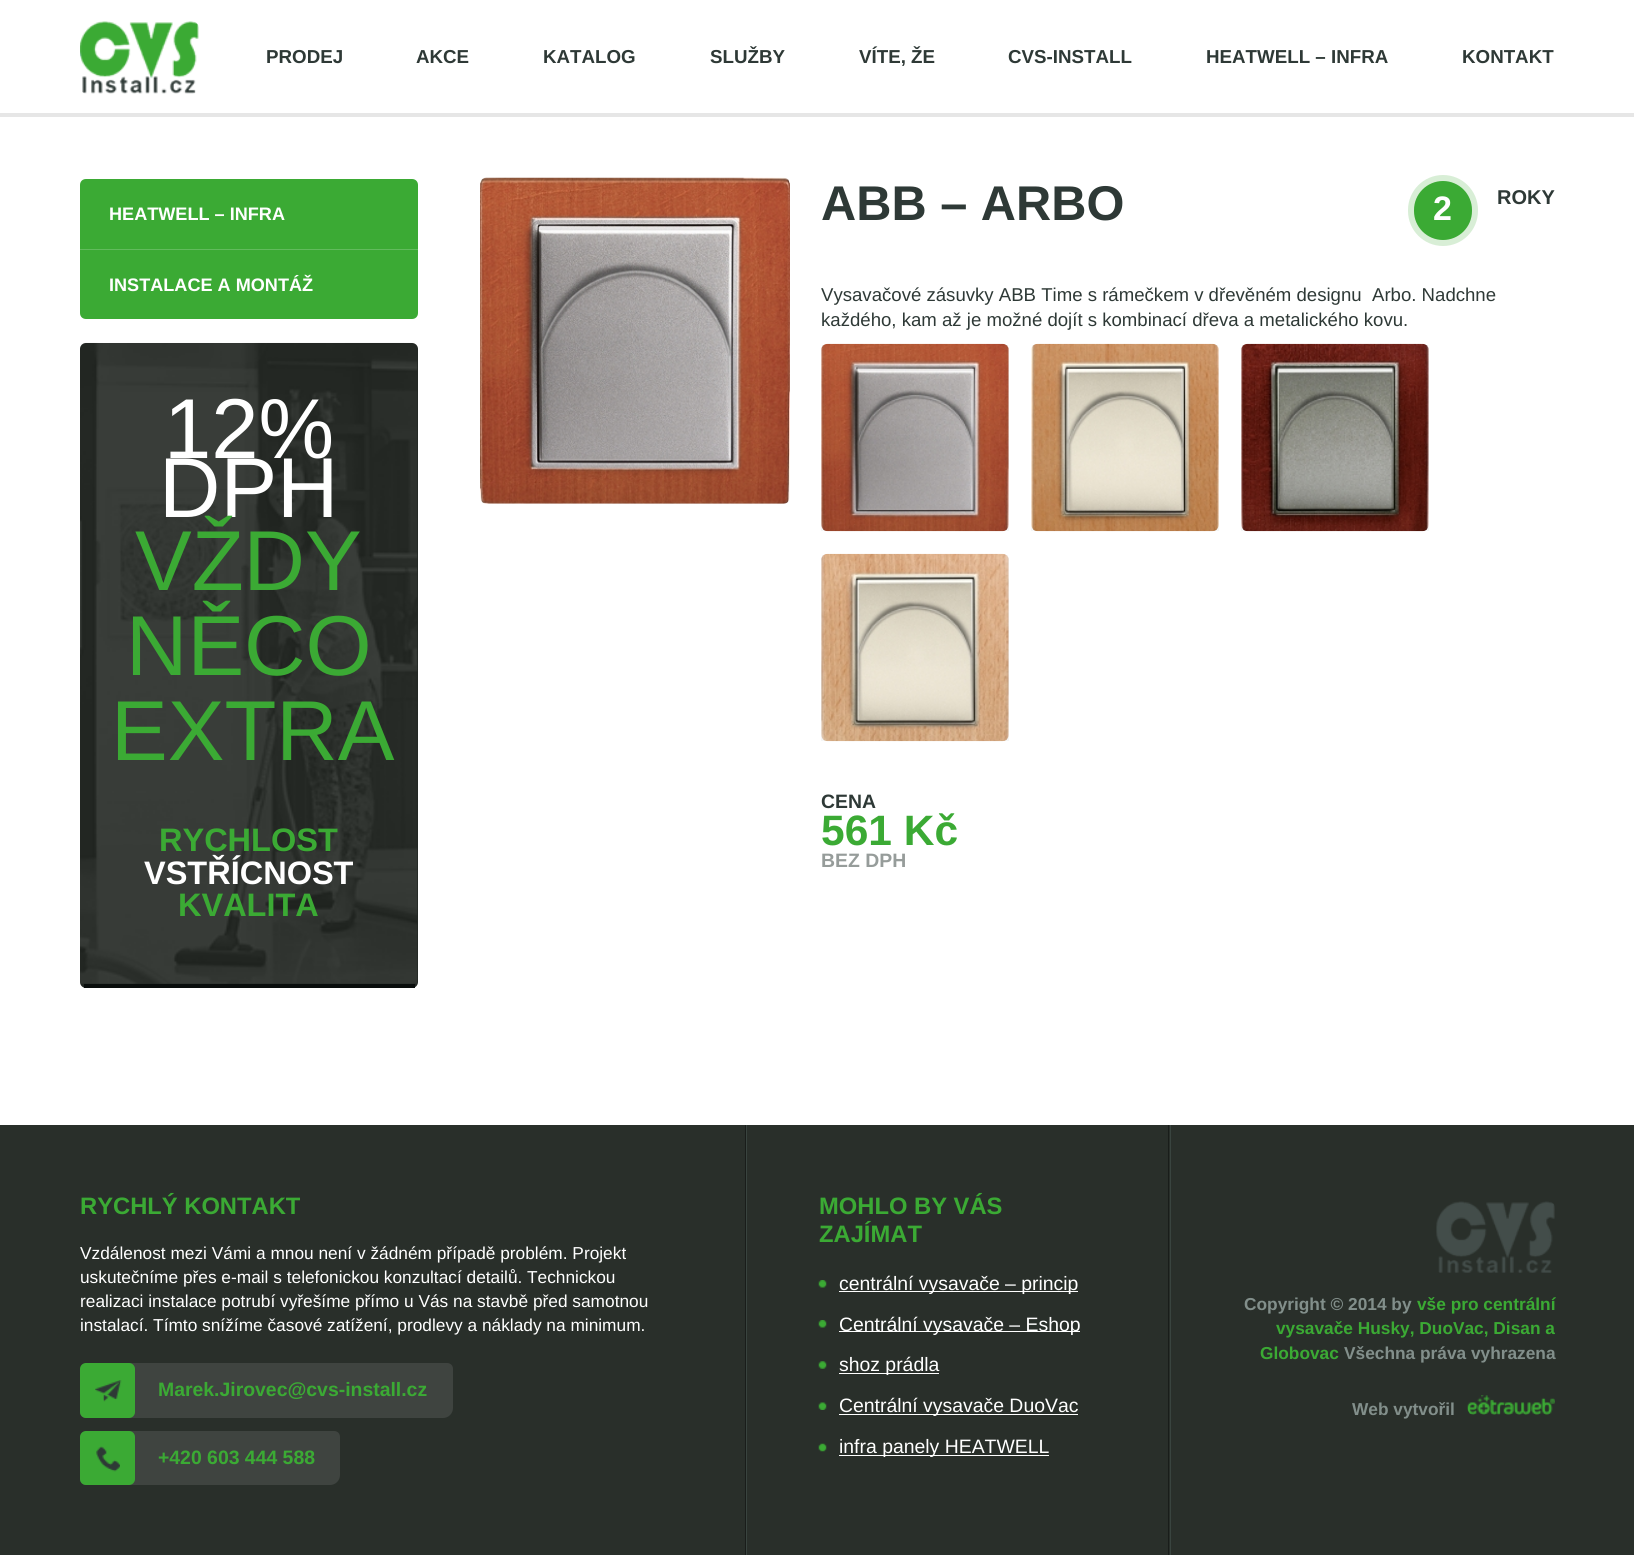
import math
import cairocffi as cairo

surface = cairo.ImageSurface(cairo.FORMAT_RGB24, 1634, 1558)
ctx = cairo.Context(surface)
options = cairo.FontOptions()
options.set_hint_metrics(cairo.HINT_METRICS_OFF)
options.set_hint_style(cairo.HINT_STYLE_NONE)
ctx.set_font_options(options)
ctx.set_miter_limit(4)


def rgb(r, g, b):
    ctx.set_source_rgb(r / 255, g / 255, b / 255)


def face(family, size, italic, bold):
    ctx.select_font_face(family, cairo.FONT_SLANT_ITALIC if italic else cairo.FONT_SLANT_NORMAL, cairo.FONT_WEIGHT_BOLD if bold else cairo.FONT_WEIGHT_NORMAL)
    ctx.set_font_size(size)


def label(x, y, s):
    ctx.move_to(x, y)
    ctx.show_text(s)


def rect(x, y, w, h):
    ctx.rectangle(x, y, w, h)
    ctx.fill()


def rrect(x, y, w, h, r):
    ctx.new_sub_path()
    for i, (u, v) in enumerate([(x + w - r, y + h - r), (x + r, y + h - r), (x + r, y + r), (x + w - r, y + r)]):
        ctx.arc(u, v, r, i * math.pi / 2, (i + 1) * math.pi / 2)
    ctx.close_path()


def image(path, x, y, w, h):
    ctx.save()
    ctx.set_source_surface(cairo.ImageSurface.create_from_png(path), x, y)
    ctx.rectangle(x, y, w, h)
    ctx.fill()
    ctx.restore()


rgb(255, 255, 255)
ctx.paint()
rgb(230, 230, 230)
rect(0, 113, 1634, 4)
image('image0.png', 80, 21, 119, 73)
face('Liberation Sans', 18.75, 0, 1)
rgb(46, 57, 54)
label(266, 63, 'PRODEJ')
label(416, 63, 'AKCE')
label(543, 63, 'KATALOG')
label(710, 63, 'SLUŽBY')
label(859, 63, 'VÍTE, ŽE')
label(1008, 63, 'CVS-INSTALL')
label(1206, 63, 'HEATWELL – INFRA')
label(1462, 63, 'KONTAKT')
rgb(59, 170, 52)
ctx.new_path()
ctx.move_to(86, 179)
ctx.line_to(412, 179)
ctx.curve_to(415.5, 179, 418, 181.5, 418, 185)
ctx.line_to(418, 250)
ctx.line_to(80, 250)
ctx.line_to(80, 185)
ctx.curve_to(80, 181.5, 82.5, 179, 86, 179)
ctx.close_path()
ctx.fill()
rgb(98, 187, 93)
rect(80, 249, 338, 1)
face('Liberation Sans', 18.1, 0, 1)
rgb(255, 255, 255)
label(109, 220, 'HEATWELL – INFRA')
rgb(59, 170, 52)
ctx.new_path()
ctx.move_to(80, 250)
ctx.line_to(418, 250)
ctx.line_to(418, 313)
ctx.curve_to(418, 316.5, 415.5, 319, 412, 319)
ctx.line_to(86, 319)
ctx.curve_to(82.5, 319, 80, 316.5, 80, 313)
ctx.close_path()
ctx.fill()
rgb(255, 255, 255)
label(109, 291, 'INSTALACE A MONTÁŽ')
rgb(34, 39, 35)
rrect(80, 343, 338, 645, 6)
ctx.fill()
image('image1.png', 80, 342, 338, 642)
rgb(9, 13, 12)
rect(84, 984, 331, 4)
face('Liberation Sans', 85, 0, 0)
rgb(255, 255, 255)
label(164, 458, '12%')
label(159, 517, 'DPH')
rgb(59, 170, 52)
label(135, 590, 'VŽDY')
label(126, 675, 'NĚCO')
label(111, 760, 'EXTRA')
face('Liberation Sans', 32.5, 0, 1)
label(159, 851, 'RYCHLOST')
rgb(255, 255, 255)
label(144, 884, 'VSTŘÍCNOST')
rgb(59, 170, 52)
label(178, 916, 'KVALITA')
image('image2.png', 480, 177, 310, 327)
face('Liberation Sans', 48.75, 0, 1)
rgb(46, 57, 54)
label(821, 220, 'ABB – ARBO')
rgb(59, 170, 52)
rrect(1411, 178, 64, 65, 32)
ctx.fill_preserve()
rgb(216, 238, 214)
ctx.set_line_width(6)
ctx.stroke()
face('Liberation Sans', 34, 0, 1)
rgb(255, 255, 255)
label(1433, 220, '2')
face('Liberation Sans', 20, 0, 1)
rgb(46, 57, 54)
label(1497, 204, 'ROKY')
face('Liberation Sans', 18.6, 0, 0)
label(821, 301, 'Vysavačové zásuvky ABB Time s rámečkem v dřevěném designu  Arbo. Nadchne')
label(821, 326, 'každého, kam až je možné dojít s kombinací dřeva a metalického kovu.')
rgb(245, 246, 246)
ctx.new_path()
ctx.move_to(827, 344)
ctx.line_to(1003, 344)
ctx.curve_to(1006.5, 344, 1009, 346.5, 1009, 350)
ctx.line_to(1009, 531)
ctx.line_to(821, 531)
ctx.line_to(821, 350)
ctx.curve_to(821, 346.5, 823.5, 344, 827, 344)
ctx.close_path()
ctx.fill()
image('image3.png', 821, 343, 188, 189)
ctx.new_path()
ctx.move_to(1037, 344)
ctx.line_to(1213, 344)
ctx.curve_to(1216.5, 344, 1219, 346.5, 1219, 350)
ctx.line_to(1219, 531)
ctx.line_to(1031, 531)
ctx.line_to(1031, 350)
ctx.curve_to(1031, 346.5, 1033.5, 344, 1037, 344)
ctx.close_path()
ctx.fill()
image('image4.png', 1031, 343, 188, 189)
ctx.new_path()
ctx.move_to(1247, 344)
ctx.line_to(1423, 344)
ctx.curve_to(1426.5, 344, 1429, 346.5, 1429, 350)
ctx.line_to(1429, 531)
ctx.line_to(1241, 531)
ctx.line_to(1241, 350)
ctx.curve_to(1241, 346.5, 1243.5, 344, 1247, 344)
ctx.close_path()
ctx.fill()
image('image5.png', 1241, 343, 188, 189)
ctx.new_path()
ctx.move_to(827, 554)
ctx.line_to(1003, 554)
ctx.curve_to(1006.5, 554, 1009, 556.5, 1009, 560)
ctx.line_to(1009, 741)
ctx.line_to(821, 741)
ctx.line_to(821, 560)
ctx.curve_to(821, 556.5, 823.5, 554, 827, 554)
ctx.close_path()
ctx.fill()
image('image6.png', 821, 553, 188, 189)
face('Liberation Sans', 19.4, 0, 1)
rgb(46, 57, 54)
label(821, 808, 'CENA')
face('Liberation Sans', 42.5, 0, 1)
rgb(59, 170, 52)
label(821, 845, '561 Kč')
face('Liberation Sans', 19.4, 0, 1)
rgb(150, 156, 154)
label(821, 867, 'BEZ DPH')
rgb(41, 47, 42)
rect(0, 1125, 1634, 430)
rgb(25, 29, 26)
rect(745, 1125, 1, 430)
face('Liberation Sans', 23.75, 0, 1)
rgb(59, 170, 52)
label(80, 1214, 'RYCHLÝ KONTAKT')
face('Liberation Sans', 17.3, 0, 0)
rgb(255, 255, 255)
label(80, 1259, 'Vzdálenost mezi Vámi a mnou není v žádném případě problém. Projekt')
label(80, 1283, 'uskutečníme přes e-mail s telefonickou konzultací detailů.')
label(527, 1283, 'Technickou')
label(80, 1307, 'realizaci instalace potrubí vyřešíme přímo u Vás na stavbě před samotnou')
label(80, 1331, 'instalací. Tímto snížíme časové zatížení, prodlevy a náklady na minimum.')
rgb(63, 68, 64)
ctx.new_path()
ctx.move_to(90, 1363)
ctx.line_to(447, 1363)
ctx.curve_to(450.5, 1363, 453, 1365.5, 453, 1369)
ctx.line_to(453, 1408)
ctx.curve_to(453, 1413.5, 448.5, 1418, 443, 1418)
ctx.line_to(86, 1418)
ctx.curve_to(82.5, 1418, 80, 1415.5, 80, 1412)
ctx.line_to(80, 1373)
ctx.curve_to(80, 1367.5, 84.5, 1363, 90, 1363)
ctx.close_path()
ctx.fill()
rgb(59, 170, 52)
rrect(80, 1363, 55, 55, 6)
ctx.fill()
image('image7.png', 95, 1380, 27, 22)
face('Liberation Sans', 19.4, 0, 1)
label(158, 1396, 'Marek.Jirovec@cvs-install.cz')
rgb(63, 68, 64)
ctx.new_path()
ctx.move_to(90, 1431)
ctx.line_to(334, 1431)
ctx.curve_to(337.5, 1431, 340, 1433.5, 340, 1437)
ctx.line_to(340, 1475)
ctx.curve_to(340, 1480.5, 335.5, 1485, 330, 1485)
ctx.line_to(86, 1485)
ctx.curve_to(82.5, 1485, 80, 1482.5, 80, 1479)
ctx.line_to(80, 1441)
ctx.curve_to(80, 1435.5, 84.5, 1431, 90, 1431)
ctx.close_path()
ctx.fill()
rgb(59, 170, 52)
rrect(80, 1431, 55, 54, 6)
ctx.fill()
image('image8.png', 96, 1446, 24, 26)
label(158, 1464, '+420 603 444 588')
rgb(25, 29, 26)
rect(1168, 1125, 1, 430)
rgb(57, 68, 63)
rect(746, 1125, 1, 430)
face('Liberation Sans', 23.75, 0, 1)
rgb(59, 170, 52)
label(819, 1214, 'MOHLO BY VÁS')
label(819, 1242, 'ZAJÍMAT')
image('image9.png', 818, 1280, 9, 8)
rgb(255, 255, 255)
rect(839, 1291, 239, 1)
face('Liberation Sans', 19.4, 0, 0)
label(839, 1290, 'centrální vysavače – princip')
image('image9.png', 818, 1320, 9, 8)
rect(839, 1331, 241, 1)
label(839, 1331, 'Centrální vysavače – Eshop')
image('image10.png', 818, 1361, 9, 8)
rect(839, 1373, 100, 1)
label(839, 1371, 'shoz prádla')
image('image11.png', 818, 1402, 9, 8)
rect(839, 1414, 239, 1)
label(839, 1412, 'Centrální vysavače DuoVac')
image('image12.png', 818, 1443, 9, 9)
rect(839, 1455, 210, 1)
label(839, 1453, 'infra panely HEATWELL')
rgb(57, 68, 63)
rect(1170, 1125, 1, 430)
image('image13.png', 1436, 1201, 119, 72)
face('Liberation Sans', 17.3, 0, 1)
rgb(130, 143, 139)
label(1244, 1310, 'Copyright © 2014 by')
rgb(59, 170, 52)
label(1417, 1310, 'vše pro centrální')
label(1276, 1334, 'vysavače Husky, DuoVac, Disan a')
label(1260, 1359, 'Globovac')
rgb(130, 143, 139)
label(1344, 1359, 'Všechna práva vyhrazena')
label(1352, 1415, 'Web vytvořil')
image('image14.png', 1467, 1395, 88, 20)
surface.write_to_png('render.png')
